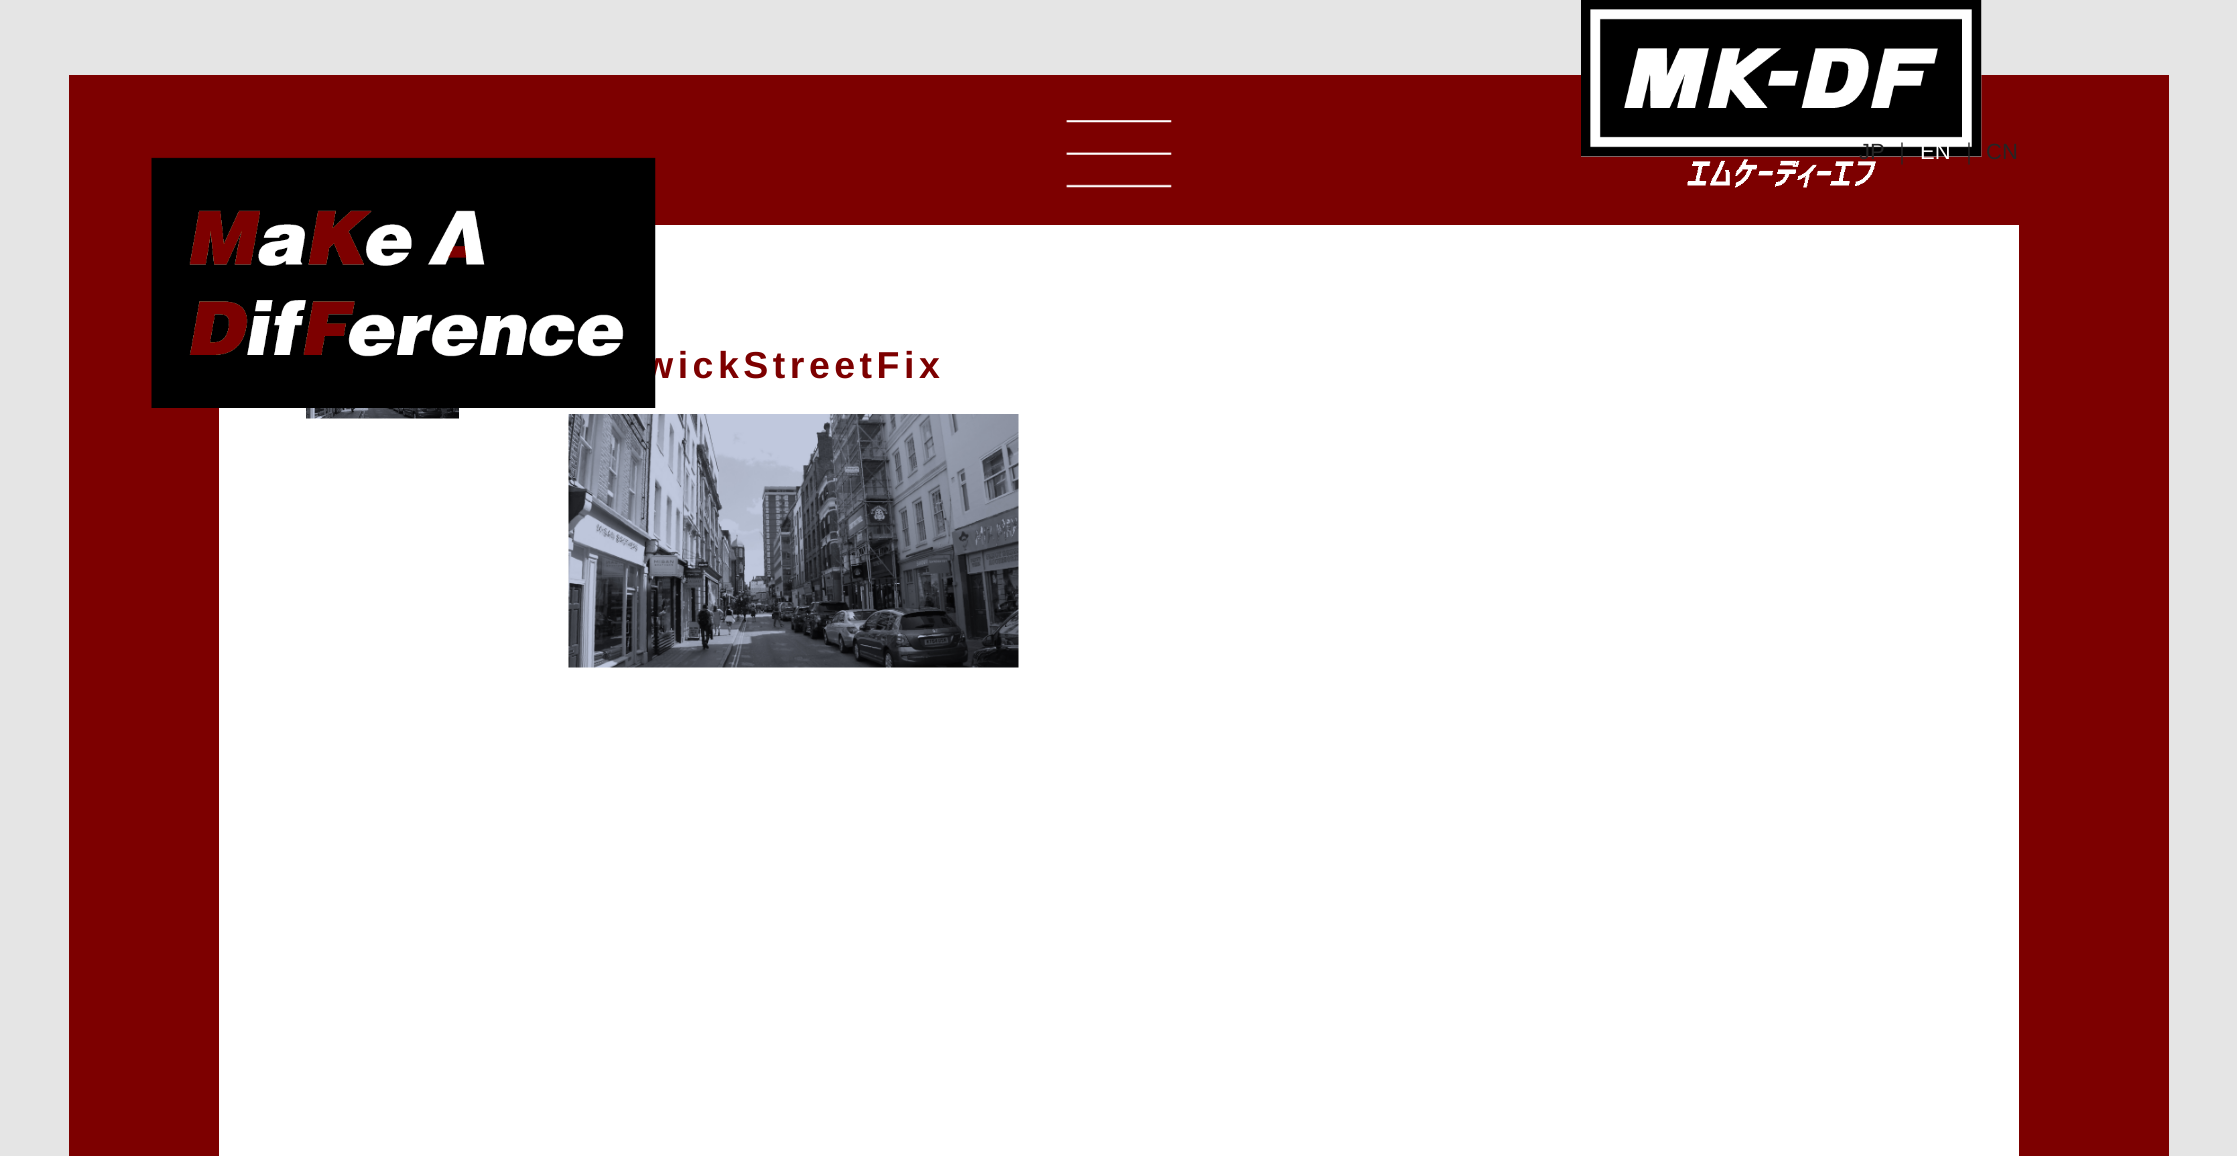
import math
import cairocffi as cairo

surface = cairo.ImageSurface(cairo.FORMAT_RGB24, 2237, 1156)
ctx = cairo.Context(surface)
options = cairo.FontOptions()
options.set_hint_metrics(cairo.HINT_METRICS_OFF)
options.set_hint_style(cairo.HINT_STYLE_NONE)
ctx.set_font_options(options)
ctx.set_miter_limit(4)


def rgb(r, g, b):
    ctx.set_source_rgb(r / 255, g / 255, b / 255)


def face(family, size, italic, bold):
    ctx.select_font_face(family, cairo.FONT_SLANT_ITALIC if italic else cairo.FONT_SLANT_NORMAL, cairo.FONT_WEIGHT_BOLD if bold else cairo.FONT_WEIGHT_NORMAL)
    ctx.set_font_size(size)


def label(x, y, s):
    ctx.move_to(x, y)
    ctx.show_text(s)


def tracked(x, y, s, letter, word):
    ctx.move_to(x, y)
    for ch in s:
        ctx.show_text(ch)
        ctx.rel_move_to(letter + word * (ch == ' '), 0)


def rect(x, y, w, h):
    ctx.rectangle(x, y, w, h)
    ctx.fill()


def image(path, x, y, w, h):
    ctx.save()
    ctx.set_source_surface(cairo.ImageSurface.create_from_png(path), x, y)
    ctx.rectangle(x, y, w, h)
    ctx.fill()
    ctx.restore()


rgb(229, 229, 229)
ctx.paint()
ctx.rectangle(144, 150, 1950, 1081)
rgb(125, 0, 0)
ctx.set_line_width(150)
ctx.stroke()
image('image0.png', 1066, 120, 106, 68)
image('image1.png', 1581, 0, 401, 188)
rgb(255, 255, 255)
rect(219, 225, 1800, 931)
face('Liberation Sans', 37.5, 0, 1)
rgb(125, 0, 0)
tracked(644, 378, 'wickStreetFix', 4.5, 0)
image('image2.png', 151, 157, 505, 251)
face('Liberation Sans', 22, 0, 0)
rgb(37, 37, 37)
label(1859, 159, 'JP')
face('WenQuanYi Zen Hei Medium', 22, 0, 0)
label(1891, 159, '｜')
face('Liberation Sans', 22, 0, 0)
rgb(255, 255, 255)
label(1920, 159, 'EN')
face('WenQuanYi Zen Hei Medium', 22, 0, 0)
rgb(37, 37, 37)
label(1958, 159, '｜')
face('Liberation Sans', 22, 0, 0)
label(1986, 159, 'CN')
image('image3.png', 568, 414, 451, 254)
image('image4.png', 306, 408, 153, 11)
surface.write_to_png('render.png')
